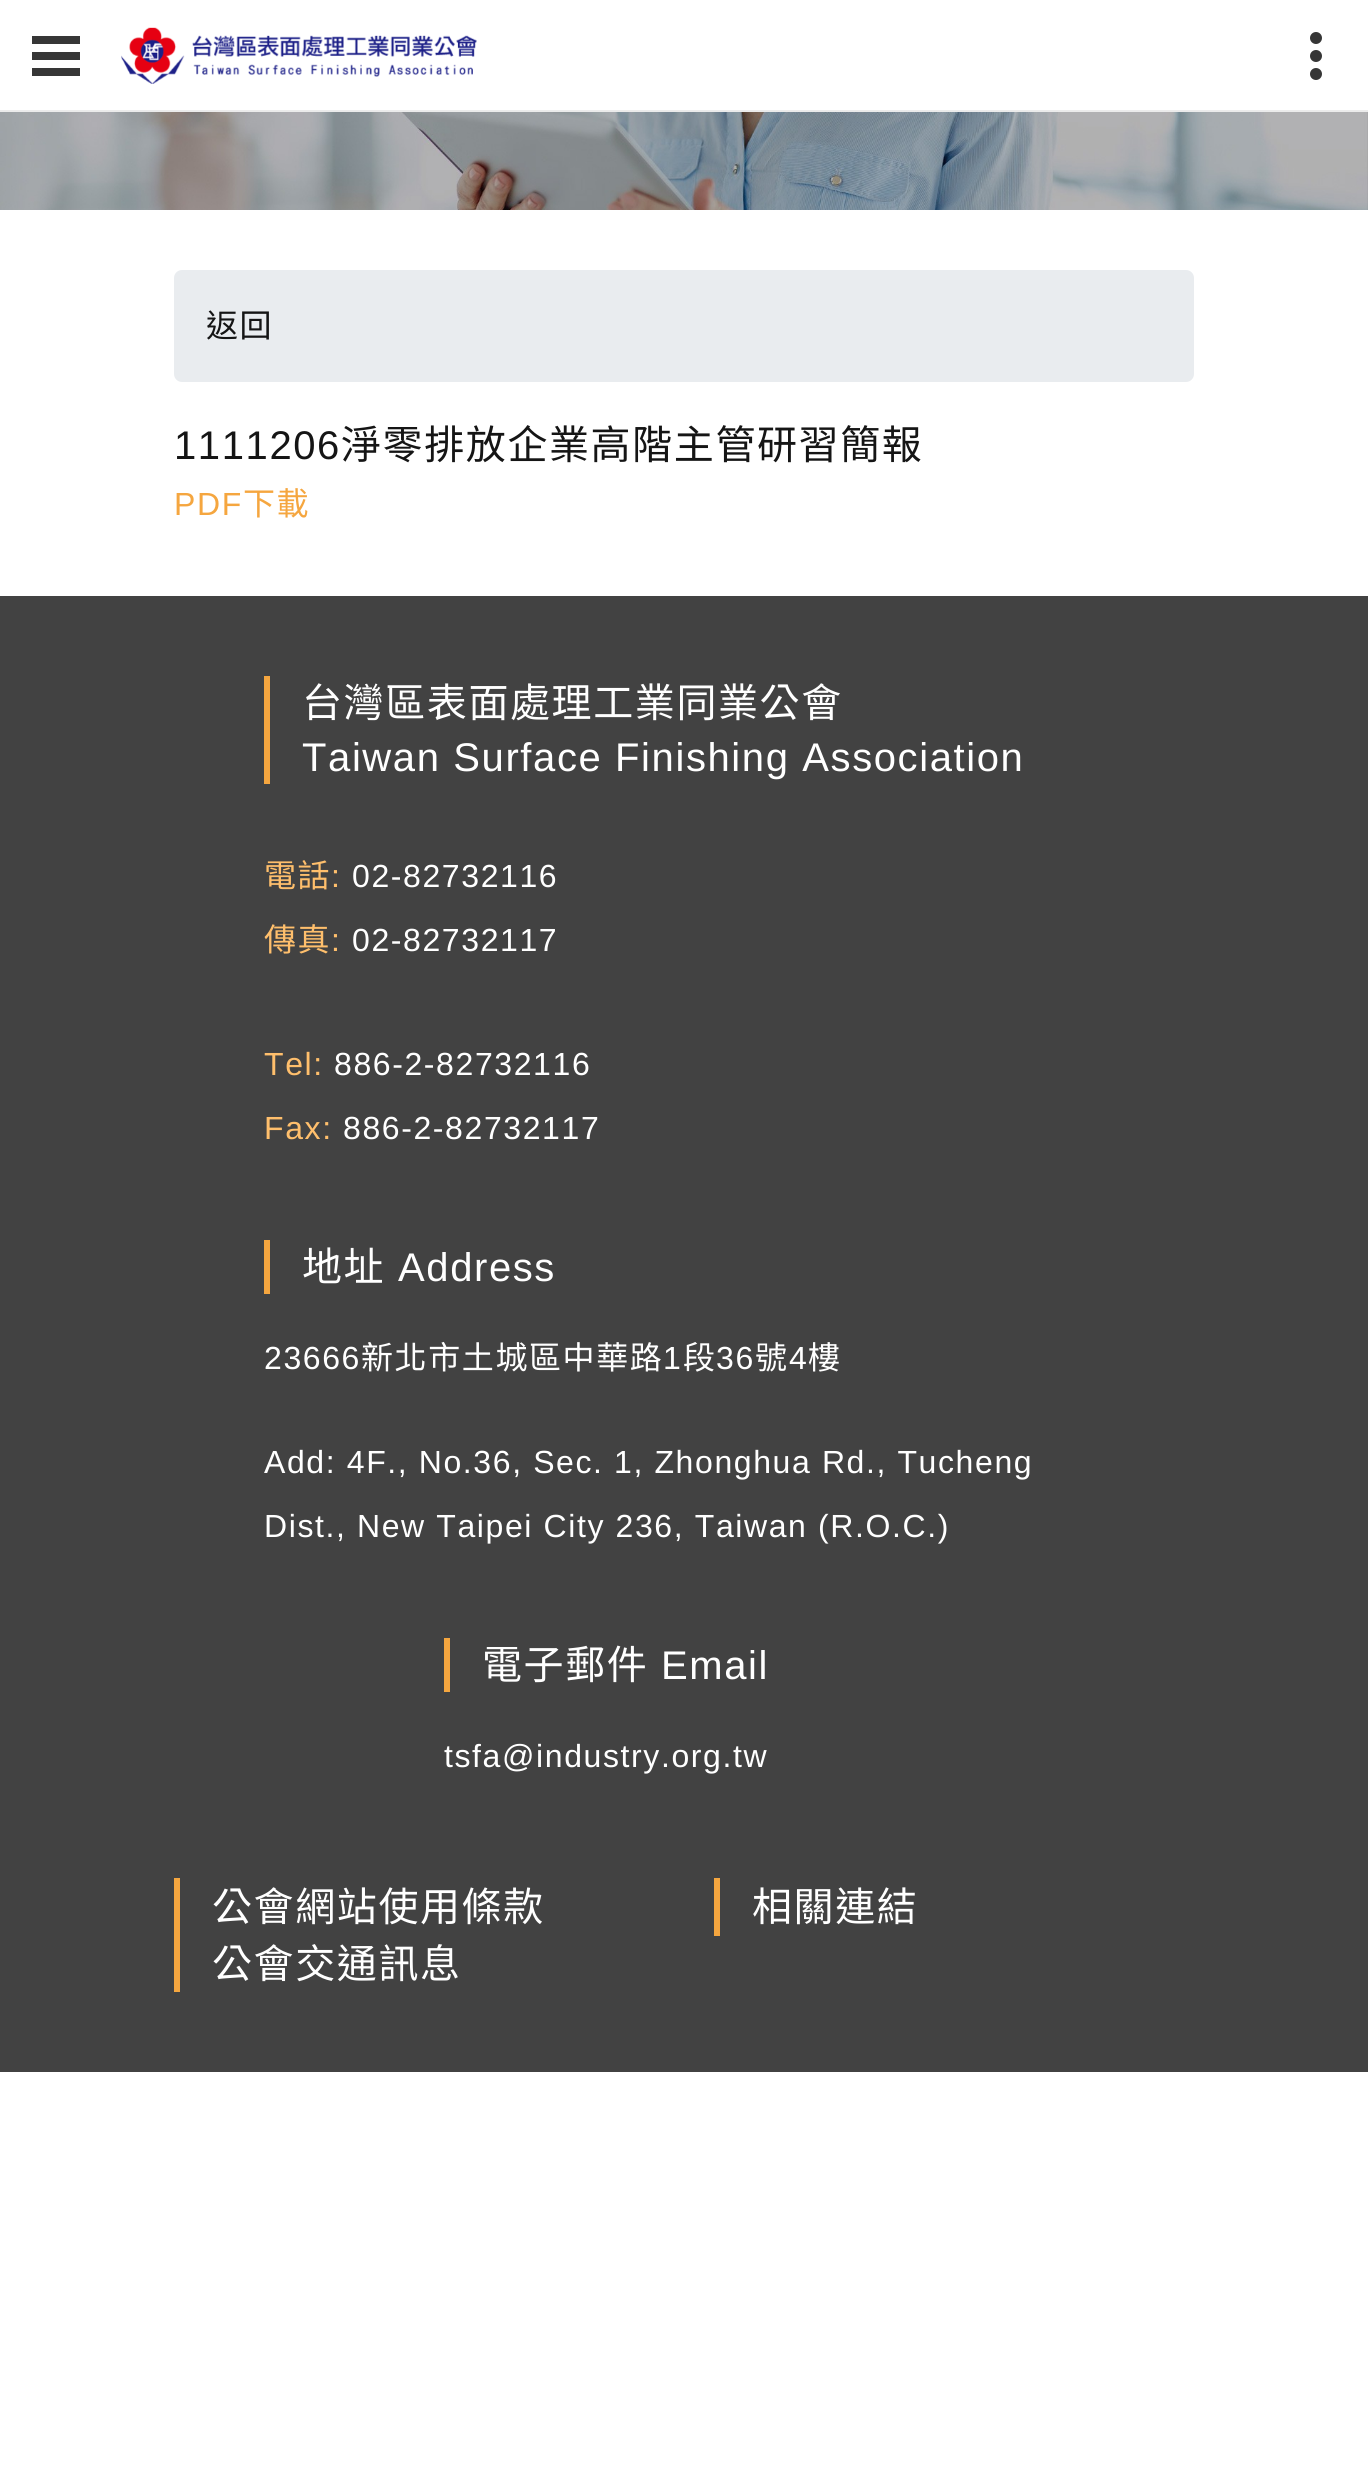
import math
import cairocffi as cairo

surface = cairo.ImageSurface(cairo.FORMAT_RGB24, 1368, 2492)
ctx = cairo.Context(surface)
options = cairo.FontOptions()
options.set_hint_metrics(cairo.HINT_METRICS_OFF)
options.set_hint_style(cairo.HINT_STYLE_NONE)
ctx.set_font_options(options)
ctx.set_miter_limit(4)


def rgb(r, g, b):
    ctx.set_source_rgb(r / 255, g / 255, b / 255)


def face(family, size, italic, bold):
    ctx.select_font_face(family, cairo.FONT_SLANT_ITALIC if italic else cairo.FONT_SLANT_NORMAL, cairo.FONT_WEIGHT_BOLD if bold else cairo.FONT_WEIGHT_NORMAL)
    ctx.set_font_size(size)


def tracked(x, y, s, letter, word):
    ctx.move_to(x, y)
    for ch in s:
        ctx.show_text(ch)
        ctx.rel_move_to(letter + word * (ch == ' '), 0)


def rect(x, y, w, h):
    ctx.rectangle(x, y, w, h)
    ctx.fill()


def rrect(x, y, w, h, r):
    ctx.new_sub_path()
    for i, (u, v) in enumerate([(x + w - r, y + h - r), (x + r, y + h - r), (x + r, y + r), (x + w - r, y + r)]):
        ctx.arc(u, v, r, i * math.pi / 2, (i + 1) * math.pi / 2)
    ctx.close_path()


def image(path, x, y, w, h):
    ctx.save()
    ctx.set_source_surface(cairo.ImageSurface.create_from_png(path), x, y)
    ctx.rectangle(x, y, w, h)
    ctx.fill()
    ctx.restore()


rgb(255, 255, 255)
ctx.paint()
rgb(235, 235, 235)
rect(0, 110, 1368, 2)
rgb(54, 54, 54)
rect(32, 52, 48, 8)
rect(32, 36, 48, 8)
rect(32, 68, 48, 8)
image('image0.png', 121, 27, 356, 57)
ctx.arc(1316, 56, 6, 0, 2 * math.pi)
ctx.fill()
ctx.arc(1316, 38, 6, 0, 2 * math.pi)
ctx.fill()
ctx.arc(1316, 74, 6, 0, 2 * math.pi)
ctx.fill()
image('image1.png', 0, 112, 1368, 98)
rgb(233, 236, 239)
rrect(174, 270, 1020, 112, 8)
ctx.fill()
face('Noto Sans CJK TC', 32, 0, 0)
rgb(21, 21, 21)
tracked(206, 337, '返回', 1.6, 0)
face('Liberation Sans', 40, 0, 0)
tracked(174, 459, '1111206', 1.6, 0)
face('Noto Sans CJK TC', 40, 0, 0)
tracked(341, 459, '淨零排放企業高階主管研習簡報', 1.6, 0)
face('Liberation Sans', 32, 0, 0)
rgb(245, 166, 63)
tracked(174, 515, 'PDF', 1.6, 0)
face('Noto Sans CJK TC', 32, 0, 0)
tracked(243, 515, '下載', 1.6, 0)
rgb(66, 66, 66)
rect(0, 596, 1368, 1476)
rgb(245, 166, 63)
rect(264, 676, 6, 108)
face('Noto Sans CJK TC', 40, 0, 0)
rgb(255, 255, 255)
tracked(302, 717, '台灣區表面處理工業同業公會', 1.6, 0)
face('Liberation Sans', 40, 0, 0)
tracked(302, 771, 'Taiwan Surface Finishing Association', 1.6, 0)
face('Noto Sans CJK TC', 32, 0, 0)
rgb(255, 191, 108)
tracked(264, 887, '電話', 1.6, 0)
face('Liberation Sans', 32, 0, 0)
tracked(331, 887, ':', 1.6, 0)
rgb(255, 255, 255)
tracked(352, 887, '02-82732116', 1.6, 0)
face('Noto Sans CJK TC', 32, 0, 0)
rgb(255, 191, 108)
tracked(264, 951, '傳真', 1.6, 0)
face('Liberation Sans', 32, 0, 0)
tracked(331, 951, ':', 1.6, 0)
rgb(255, 255, 255)
tracked(352, 951, '02-82732117', 1.6, 0)
rgb(255, 191, 108)
tracked(264, 1075, 'Tel:', 1.6, 0)
rgb(255, 255, 255)
tracked(334, 1075, '886-2-82732116', 1.6, 0)
rgb(255, 191, 108)
tracked(264, 1139, 'Fax:', 1.6, 0)
rgb(255, 255, 255)
tracked(343, 1139, '886-2-82732117', 1.6, 0)
rgb(245, 166, 63)
rect(264, 1240, 6, 54)
face('Noto Sans CJK TC', 40, 0, 0)
rgb(255, 255, 255)
tracked(302, 1281, '地址', 1.6, 0)
face('Liberation Sans', 40, 0, 0)
tracked(398, 1281, 'Address', 1.6, 0)
face('Liberation Sans', 32, 0, 0)
tracked(264, 1369, '23666', 1.6, 0)
face('Noto Sans CJK TC', 32, 0, 0)
tracked(361, 1369, '新北市土城區中華路', 1.6, 0)
face('Liberation Sans', 32, 0, 0)
tracked(663, 1369, '1', 1.6, 0)
face('Noto Sans CJK TC', 32, 0, 0)
tracked(683, 1369, '段', 1.6, 0)
face('Liberation Sans', 32, 0, 0)
tracked(716, 1369, '36', 1.6, 0)
face('Noto Sans CJK TC', 32, 0, 0)
tracked(755, 1369, '號', 1.6, 0)
face('Liberation Sans', 32, 0, 0)
tracked(789, 1369, '4', 1.6, 0)
face('Noto Sans CJK TC', 32, 0, 0)
tracked(808, 1369, '樓', 1.6, 0)
face('Liberation Sans', 32, 0, 0)
tracked(264, 1473, 'Add: 4F., No.36, Sec. 1, Zhonghua Rd., Tucheng', 1.6, 0)
tracked(264, 1537, 'Dist., New Taipei City 236, Taiwan (R.O.C.)', 1.6, 0)
rgb(245, 166, 63)
rect(444, 1638, 6, 54)
face('Noto Sans CJK TC', 40, 0, 0)
rgb(255, 255, 255)
tracked(482, 1679, '電子郵件', 1.6, 0)
face('Liberation Sans', 40, 0, 0)
tracked(661, 1679, 'Email', 1.6, 0)
face('Liberation Sans', 32, 0, 0)
tracked(444, 1767, 'tsfa@industry.org.tw', 1.6, 0)
rgb(245, 166, 63)
rect(174, 1878, 6, 114)
face('Noto Sans CJK TC', 40, 0, 0)
rgb(255, 255, 255)
tracked(212, 1921, '公會網站使用條款', 1.6, 0)
rgb(245, 166, 63)
rect(714, 1878, 6, 58)
rgb(255, 255, 255)
tracked(752, 1921, '相關連結', 1.6, 0)
tracked(212, 1978, '公會交通訊息', 1.6, 0)
surface.write_to_png('render.png')
